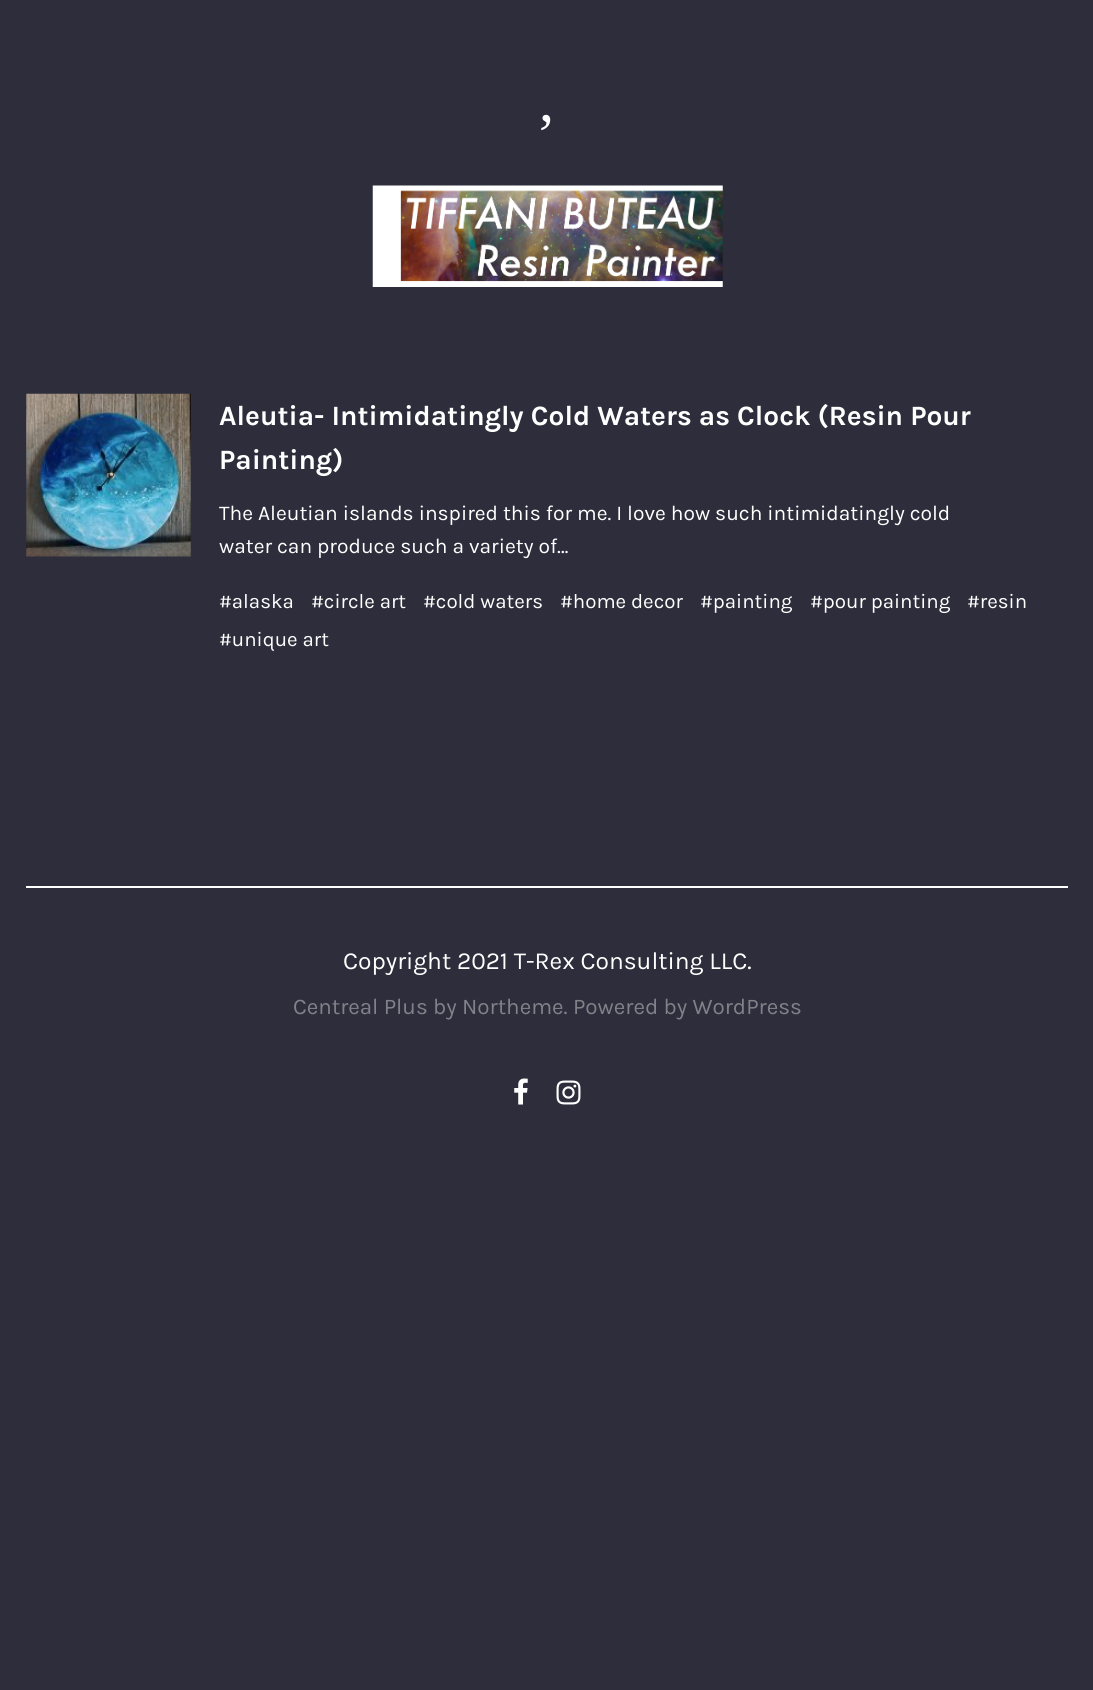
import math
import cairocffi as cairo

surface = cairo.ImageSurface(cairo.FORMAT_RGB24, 1093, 1690)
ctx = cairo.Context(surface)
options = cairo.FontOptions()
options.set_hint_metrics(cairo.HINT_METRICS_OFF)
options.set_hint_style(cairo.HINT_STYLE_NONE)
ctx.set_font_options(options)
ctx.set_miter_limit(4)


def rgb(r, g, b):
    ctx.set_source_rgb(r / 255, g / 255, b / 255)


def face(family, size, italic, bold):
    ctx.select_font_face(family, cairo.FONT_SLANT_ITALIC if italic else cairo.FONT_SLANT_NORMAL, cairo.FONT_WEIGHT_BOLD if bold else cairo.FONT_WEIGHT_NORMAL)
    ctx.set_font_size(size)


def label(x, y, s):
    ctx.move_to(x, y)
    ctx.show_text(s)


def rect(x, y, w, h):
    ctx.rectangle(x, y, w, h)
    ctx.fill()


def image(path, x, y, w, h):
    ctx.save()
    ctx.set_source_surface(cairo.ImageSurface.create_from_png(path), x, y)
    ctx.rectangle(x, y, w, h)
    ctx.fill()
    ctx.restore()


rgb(45, 45, 59)
ctx.paint()
face('Liberation Serif', 60, 0, 0)
rgb(255, 255, 255)
label(539, 121, ',')
image('image0.png', 372, 185, 351, 102)
image('image1.png', 26, 393, 165, 164)
face('Karla', 28, 0, 1)
label(219, 425, 'Aleutia- Intimidatingly Cold Waters as Clock (Resin Pour')
label(219, 469, 'Painting)')
face('Karla', 21, 0, 0)
label(219, 520, 'The Aleutian islands inspired this for me. I love how such intimidatingly cold')
label(219, 553, 'water can produce such a variety of…')
face('Karla', 20.5, 0, 0)
label(219, 608, '#alaska')
label(311, 608, '#circle art')
label(423, 608, '#cold waters')
label(560, 608, '#home decor')
label(700, 608, '#painting')
label(810, 608, '#pour painting')
label(967, 608, '#resin')
label(219, 646, '#unique art')
rect(26, 886, 1042, 2)
face('Karla', 24.5, 0, 0)
label(343, 969, 'Copyright 2021 T-Rex Consulting LLC.')
face('Karla', 22.4, 0, 0)
rgb(129, 129, 137)
label(293, 1014, 'Centreal Plus by Northeme. Powered by WordPress')
image('image2.png', 514, 1078, 14, 27)
image('image3.png', 556, 1080, 25, 25)
surface.write_to_png('render.png')
